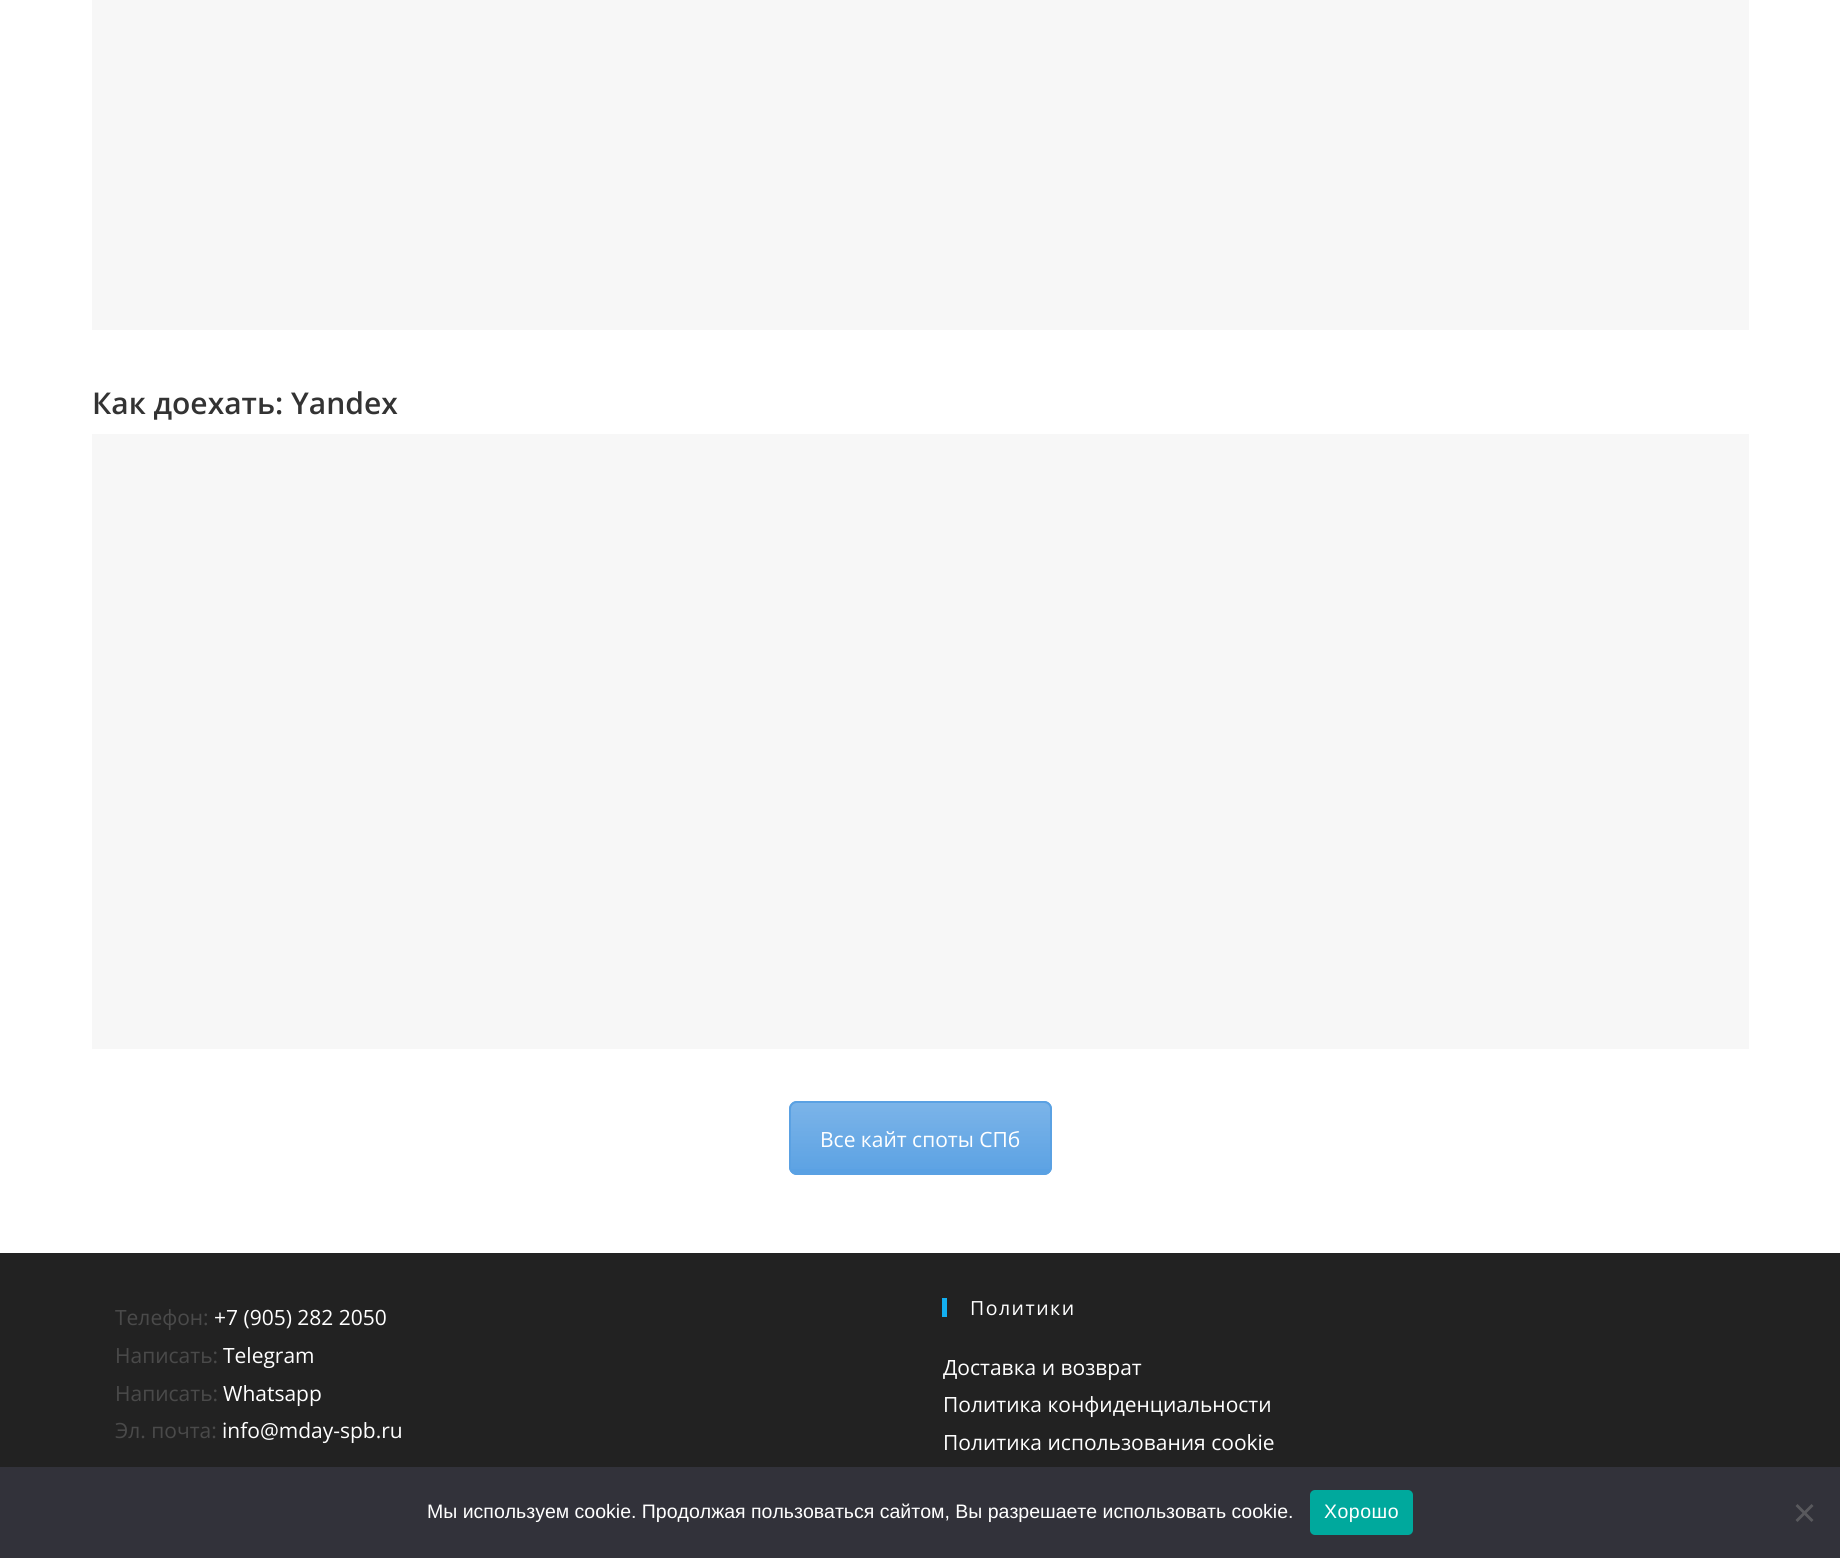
import math
import cairocffi as cairo

surface = cairo.ImageSurface(cairo.FORMAT_RGB24, 1840, 1558)
ctx = cairo.Context(surface)
options = cairo.FontOptions()
options.set_hint_metrics(cairo.HINT_METRICS_OFF)
options.set_hint_style(cairo.HINT_STYLE_NONE)
ctx.set_font_options(options)
ctx.set_miter_limit(4)


def rgb(r, g, b):
    ctx.set_source_rgb(r / 255, g / 255, b / 255)


def face(family, size, italic, bold):
    ctx.select_font_face(family, cairo.FONT_SLANT_ITALIC if italic else cairo.FONT_SLANT_NORMAL, cairo.FONT_WEIGHT_BOLD if bold else cairo.FONT_WEIGHT_NORMAL)
    ctx.set_font_size(size)


def label(x, y, s):
    ctx.move_to(x, y)
    ctx.show_text(s)


def tracked(x, y, s, letter, word):
    ctx.move_to(x, y)
    for ch in s:
        ctx.show_text(ch)
        ctx.rel_move_to(letter + word * (ch == ' '), 0)


def rect(x, y, w, h):
    ctx.rectangle(x, y, w, h)
    ctx.fill()


def rrect(x, y, w, h, r):
    ctx.new_sub_path()
    for i, (u, v) in enumerate([(x + w - r, y + h - r), (x + r, y + h - r), (x + r, y + r), (x + w - r, y + r)]):
        ctx.arc(u, v, r, i * math.pi / 2, (i + 1) * math.pi / 2)
    ctx.close_path()


rgb(255, 255, 255)
ctx.paint()
rgb(247, 247, 247)
rect(92, 0, 1657, 330)
face('Open Sans SemiBold', 30, 0, 0)
rgb(51, 51, 51)
label(92, 414, 'Как доехать: Yandex')
rgb(247, 247, 247)
rect(92, 434, 1657, 615)
rgb(90, 161, 227)
rrect(789, 1101, 263, 74, 8)
ctx.fill()
ctx.save()
rrect(789, 1101, 263, 74, 8)
ctx.clip()
gradient = cairo.LinearGradient(920, 1103, 920, 1173)
gradient.add_color_stop_rgba(0, 1, 1, 1, 0.2)
gradient.add_color_stop_rgba(1, 1, 1, 1, 0.01)
ctx.set_source(gradient)
rect(789, 1103, 263, 66)
ctx.restore()
rrect(790, 1102, 261, 72, 7)
ctx.stroke()
face('Open Sans', 21, 0, 0)
rgb(255, 255, 255)
label(820, 1147, 'Все кайт споты СПб')
rgb(34, 34, 34)
rect(0, 1253, 1840, 214)
rgb(74, 74, 74)
label(115, 1325, 'Телефон:')
rgb(255, 255, 255)
label(214, 1325, '+7 (905) 282 2050')
rgb(74, 74, 74)
label(115, 1363, 'Написать:')
rgb(255, 255, 255)
label(223, 1363, 'Telegram')
rgb(74, 74, 74)
label(115, 1401, 'Написать:')
rgb(255, 255, 255)
label(223, 1401, 'Whatsapp')
rgb(74, 74, 74)
label(115, 1438, 'Эл. почта:')
rgb(255, 255, 255)
label(222, 1438, 'info@mday-spb.ru')
rgb(19, 175, 240)
rect(942, 1298, 5, 19)
face('Open Sans', 19.5, 0, 0)
rgb(255, 255, 255)
tracked(970, 1315, 'Политики', 1.5, 0)
face('Open Sans', 21, 0, 0)
label(943, 1375, 'Доставка и возврат')
label(943, 1412, 'Политика конфиденциальности')
label(943, 1450, 'Политика использования cookie')
rgb(50, 50, 58)
rect(0, 1467, 1840, 91)
face('Liberation Sans', 19.5, 0, 0)
rgb(255, 255, 255)
label(427, 1518, 'Мы используем cookie. Продолжая пользоваться сайтом, Вы разрешаете использовать cookie.')
rgb(0, 169, 157)
rrect(1310, 1490, 103, 45, 5)
ctx.fill()
rgb(255, 255, 255)
tracked(1324, 1518, 'Хорошо', 0.5, 0)
rgb(89, 89, 93)
ctx.new_path()
ctx.move_to(1811.5, 1504)
ctx.line_to(1813.5, 1506)
ctx.line_to(1797.5, 1522)
ctx.line_to(1795.5, 1520)
ctx.close_path()
ctx.fill()
ctx.new_path()
ctx.move_to(1795.5, 1506)
ctx.line_to(1797.5, 1504)
ctx.line_to(1813.5, 1520)
ctx.line_to(1811.5, 1522)
ctx.close_path()
ctx.fill()
surface.write_to_png('render.png')
